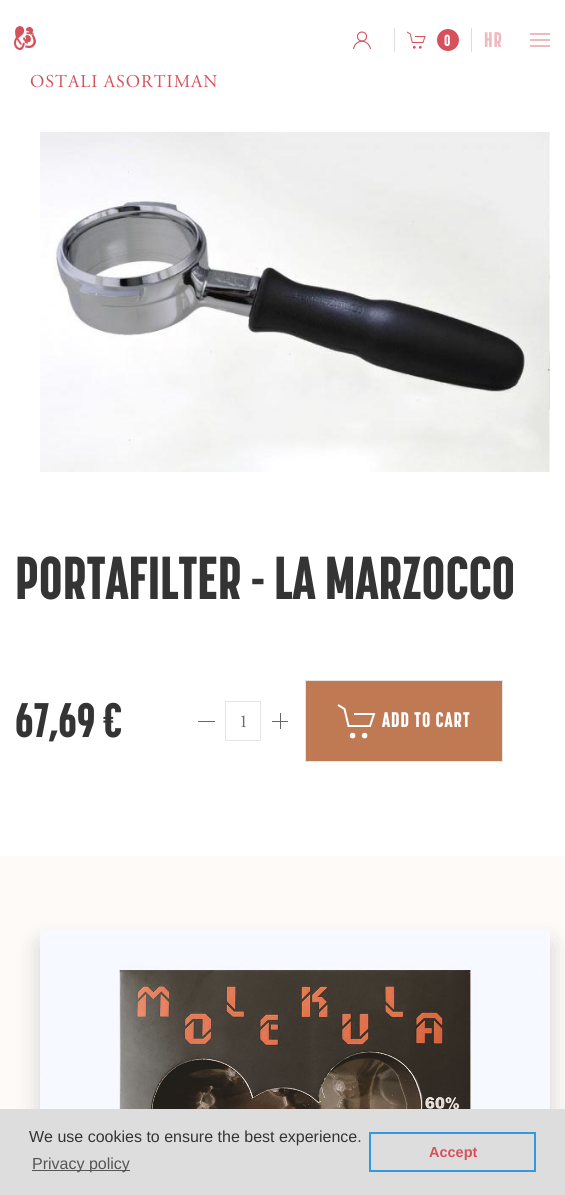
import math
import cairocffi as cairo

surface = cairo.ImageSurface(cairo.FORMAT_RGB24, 565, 1195)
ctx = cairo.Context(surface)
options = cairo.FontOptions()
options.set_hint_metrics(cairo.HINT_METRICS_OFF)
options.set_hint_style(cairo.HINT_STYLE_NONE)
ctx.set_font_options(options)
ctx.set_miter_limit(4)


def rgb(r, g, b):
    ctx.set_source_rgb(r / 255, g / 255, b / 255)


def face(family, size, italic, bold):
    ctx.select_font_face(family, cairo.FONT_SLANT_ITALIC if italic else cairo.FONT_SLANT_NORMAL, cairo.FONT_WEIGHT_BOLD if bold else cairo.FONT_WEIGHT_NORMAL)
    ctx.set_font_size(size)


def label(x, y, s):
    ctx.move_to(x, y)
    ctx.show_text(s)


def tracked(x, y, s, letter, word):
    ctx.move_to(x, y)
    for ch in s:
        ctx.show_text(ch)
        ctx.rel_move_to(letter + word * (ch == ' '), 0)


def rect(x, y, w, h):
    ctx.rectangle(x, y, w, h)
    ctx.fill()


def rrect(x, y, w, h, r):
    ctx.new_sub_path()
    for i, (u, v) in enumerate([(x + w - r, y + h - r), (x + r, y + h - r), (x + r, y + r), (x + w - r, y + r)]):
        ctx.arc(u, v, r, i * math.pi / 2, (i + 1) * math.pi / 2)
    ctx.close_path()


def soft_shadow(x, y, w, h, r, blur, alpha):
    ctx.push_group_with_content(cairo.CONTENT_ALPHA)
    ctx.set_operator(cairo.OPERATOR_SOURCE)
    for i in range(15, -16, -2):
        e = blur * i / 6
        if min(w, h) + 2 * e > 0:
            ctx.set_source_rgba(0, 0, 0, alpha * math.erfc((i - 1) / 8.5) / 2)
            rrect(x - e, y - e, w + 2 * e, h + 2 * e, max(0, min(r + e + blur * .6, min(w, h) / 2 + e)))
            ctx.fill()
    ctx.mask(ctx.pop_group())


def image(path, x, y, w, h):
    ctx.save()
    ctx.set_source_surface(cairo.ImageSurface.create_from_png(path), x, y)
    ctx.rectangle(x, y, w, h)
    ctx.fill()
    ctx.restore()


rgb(255, 255, 255)
ctx.paint()
image('image0.png', 14, 26, 22, 24)
ctx.arc(362, 36.5, 4.5, 0, 2 * math.pi)
rgb(214, 81, 92)
ctx.set_line_width(1.1)
ctx.stroke()
ctx.new_path()
ctx.move_to(353.5, 49)
ctx.curve_to(355.5, 38.5, 368.5, 39, 370.5, 49)
ctx.stroke()
rgb(221, 221, 221)
rect(394, 28, 1, 24)
image('image1.png', 407, 31, 19, 18)
rgb(214, 81, 92)
ctx.arc(448, 40, 11, 0, 2 * math.pi)
ctx.fill()
face('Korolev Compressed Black', 16, 0, 0)
rgb(255, 255, 255)
tracked(444, 46, '0', 1, 0)
rgb(221, 221, 221)
rect(471, 28, 1, 24)
face('Korolev Compressed Black', 21, 0, 0)
rgb(239, 185, 190)
tracked(484, 47, 'HR', 1, 0)
rect(530, 39, 20, 2)
rect(530, 33, 20, 2)
rect(530, 45, 20, 2)
face('Adobe Garamond', 18, 0, 0)
rgb(214, 81, 92)
tracked(30, 87, 'OSTALI ASORTIMAN', 1, 0)
image('image2.png', 40, 132, 510, 340)
face('Korolev Compressed Black', 60, 0, 0)
rgb(52, 52, 52)
label(15, 599, 'PORTAFILTER - LA MARZOCCO')
face('Korolev Compressed Black', 48, 0, 0)
label(15, 737, '67,69 €')
rgb(102, 102, 102)
rect(198, 721, 17, 1)
ctx.rectangle(225.5, 701.5, 35, 39)
rgb(229, 229, 229)
ctx.set_line_width(1)
ctx.stroke()
face('Adobe Garamond', 18, 0, 0)
rgb(102, 102, 102)
label(239, 727, '1')
rect(280, 713, 1, 16)
rect(272, 721, 16, 1)
rgb(192, 122, 83)
ctx.rectangle(305.5, 680.5, 197, 81)
ctx.fill_preserve()
rgb(229, 229, 229)
ctx.stroke()
ctx.new_path()
ctx.move_to(338, 705)
ctx.line_to(344.5, 709)
ctx.line_to(348.5, 726)
ctx.line_to(370, 726)
ctx.line_to(374, 714)
ctx.line_to(354, 714)
rgb(255, 255, 255)
ctx.set_line_width(2)
ctx.stroke()
ctx.arc(352.6, 735.6, 2.8, 0, 2 * math.pi)
ctx.fill()
ctx.arc(364.6, 735.6, 2.8, 0, 2 * math.pi)
ctx.fill()
face('Korolev Compressed Black', 21, 0, 0)
tracked(382, 727, 'ADD TO CART', 1, 0)
rgb(254, 250, 248)
rect(0, 856, 565, 253)
rgb(0, 0, 0)
soft_shadow(40, 944, 510, 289, 0, 12.5, 0.16)
image('image3.png', 40, 930, 510, 179)
rgb(221, 221, 221)
rect(0, 1109, 565, 86)
face('Liberation Sans', 16, 0, 0)
rgb(52, 52, 52)
label(29, 1142, 'We use cookies to ensure the best experience.')
rgb(85, 85, 85)
rect(32, 1170, 98, 1)
label(32, 1169, 'Privacy policy')
ctx.rectangle(370, 1133, 165, 38)
rgb(52, 152, 219)
ctx.stroke()
face('Liberation Sans', 14.5, 0, 1)
rgb(214, 81, 92)
label(429, 1157, 'Accept')
surface.write_to_png('render.png')
